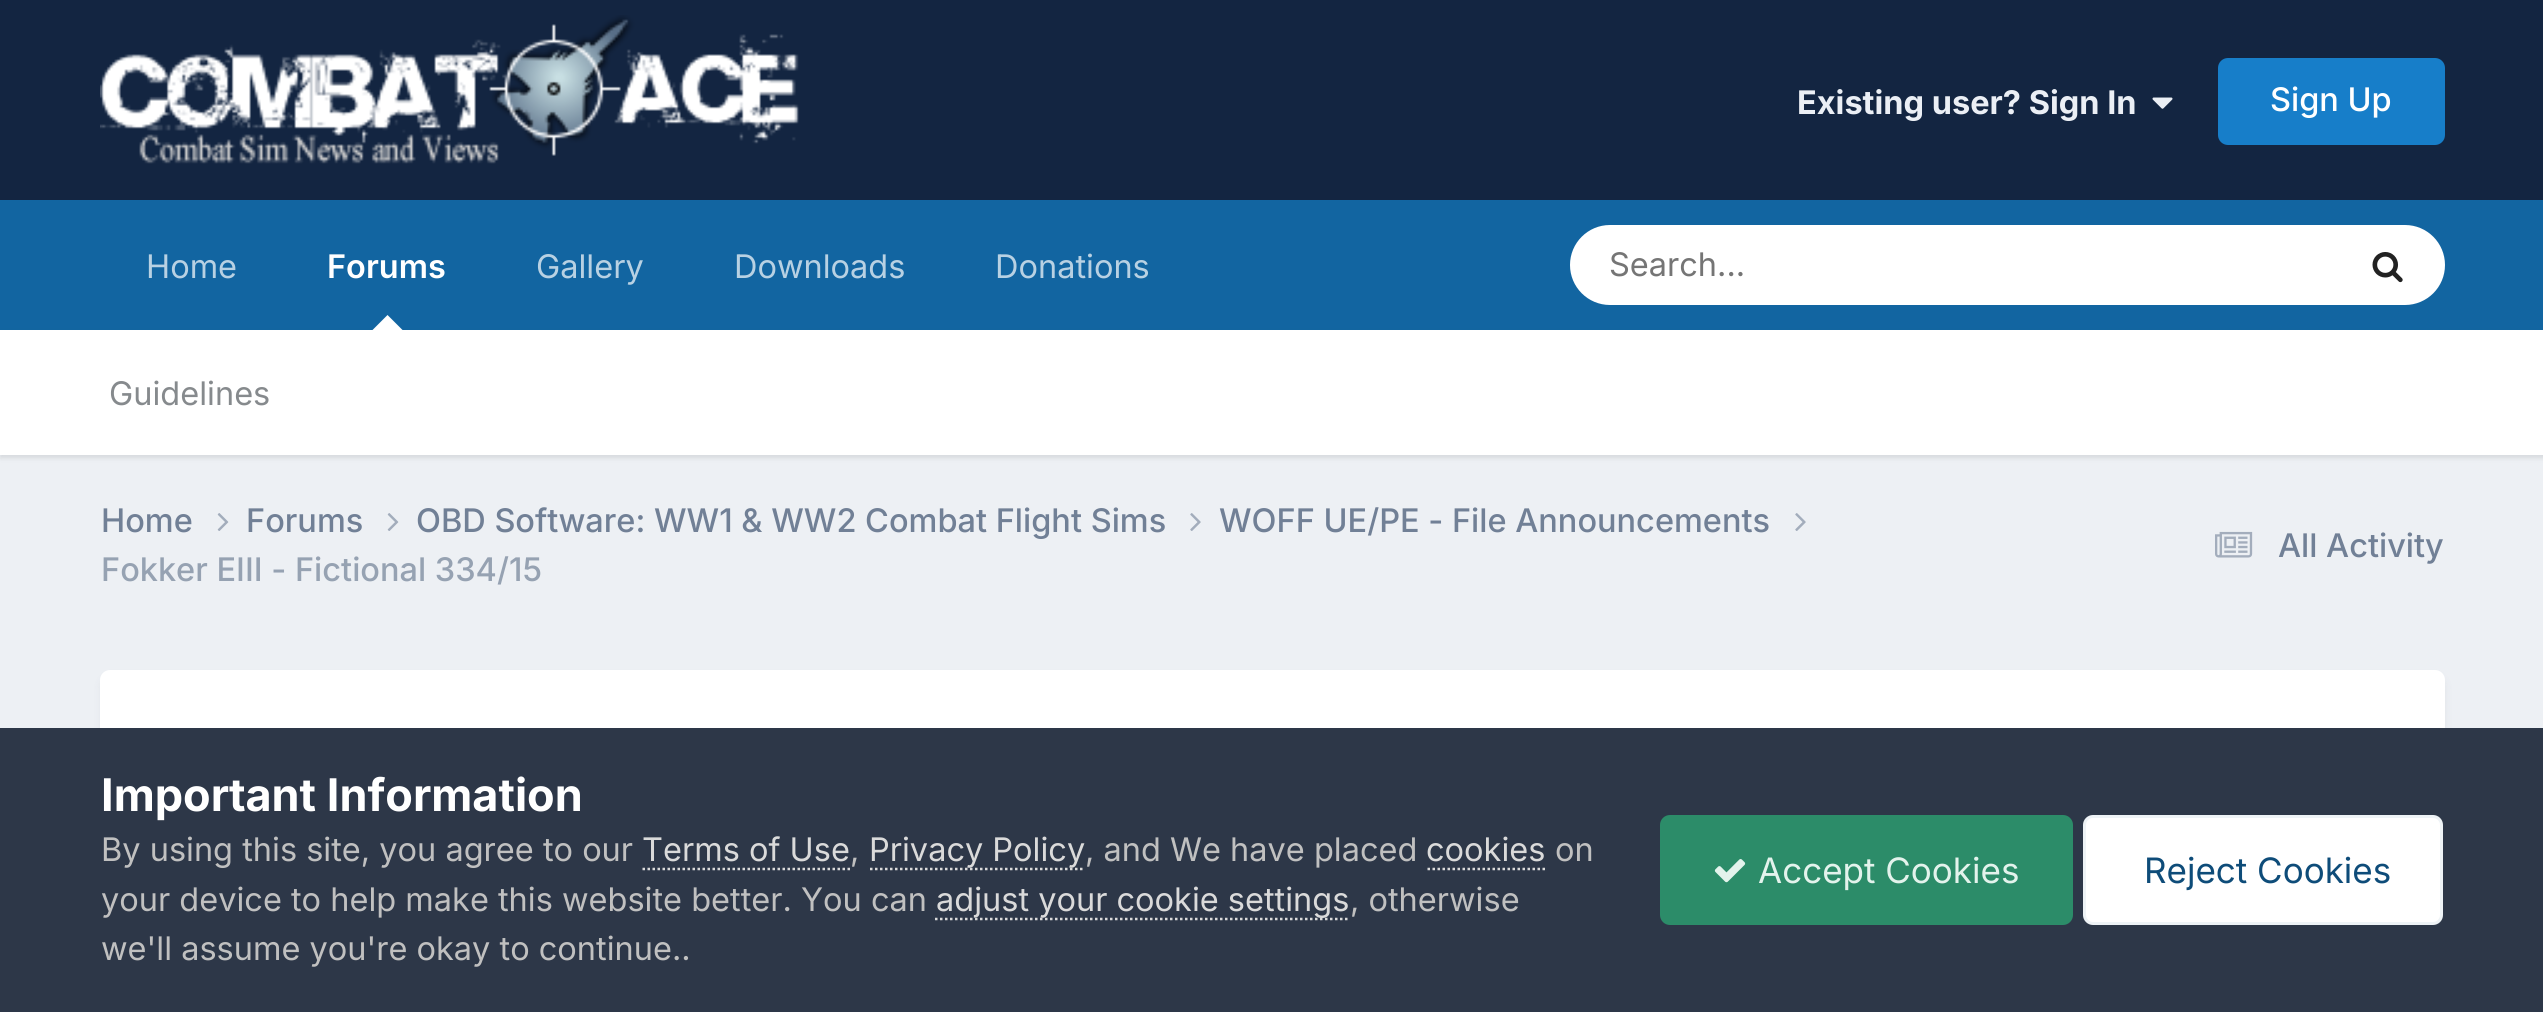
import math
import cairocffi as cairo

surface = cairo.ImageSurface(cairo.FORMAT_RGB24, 2543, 1012)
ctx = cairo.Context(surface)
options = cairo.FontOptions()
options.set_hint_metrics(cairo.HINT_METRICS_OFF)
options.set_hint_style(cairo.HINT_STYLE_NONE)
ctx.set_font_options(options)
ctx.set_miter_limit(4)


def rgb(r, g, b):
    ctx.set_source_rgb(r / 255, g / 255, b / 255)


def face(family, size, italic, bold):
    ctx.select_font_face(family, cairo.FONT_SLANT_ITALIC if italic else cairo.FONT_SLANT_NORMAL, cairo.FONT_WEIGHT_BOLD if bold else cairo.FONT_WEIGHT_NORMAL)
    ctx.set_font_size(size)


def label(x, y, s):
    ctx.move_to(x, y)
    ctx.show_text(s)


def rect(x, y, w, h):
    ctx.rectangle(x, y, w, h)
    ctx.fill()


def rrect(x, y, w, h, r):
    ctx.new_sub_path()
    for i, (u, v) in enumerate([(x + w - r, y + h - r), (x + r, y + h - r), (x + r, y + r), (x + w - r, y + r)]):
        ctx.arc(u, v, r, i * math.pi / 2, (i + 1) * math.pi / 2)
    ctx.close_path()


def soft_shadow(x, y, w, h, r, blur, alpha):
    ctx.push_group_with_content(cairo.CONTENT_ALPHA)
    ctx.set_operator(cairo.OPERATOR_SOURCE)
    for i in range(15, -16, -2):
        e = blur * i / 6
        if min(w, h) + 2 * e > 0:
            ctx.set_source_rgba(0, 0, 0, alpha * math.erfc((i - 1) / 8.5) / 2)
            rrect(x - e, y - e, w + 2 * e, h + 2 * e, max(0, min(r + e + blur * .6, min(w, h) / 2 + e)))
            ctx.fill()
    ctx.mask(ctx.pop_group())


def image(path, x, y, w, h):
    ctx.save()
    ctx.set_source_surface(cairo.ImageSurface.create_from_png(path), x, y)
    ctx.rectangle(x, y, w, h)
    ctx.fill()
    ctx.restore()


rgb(237, 240, 244)
ctx.paint()
rgb(19, 37, 65)
rect(0, 0, 2543, 200)
image('image0.png', 100, 15, 699, 149)
face('Inter', 32.5, 0, 1)
rgb(235, 239, 245)
label(1797, 114, 'Existing user? Sign In')
image('image1.png', 2152, 97, 21, 12)
rgb(23, 126, 201)
rrect(2218, 58, 227, 87, 10)
ctx.fill()
face('Inter Medium', 32.5, 0, 0)
rgb(255, 255, 255)
label(2270, 111, 'Sign Up')
rgb(18, 101, 161)
rect(0, 200, 2543, 130)
face('Inter SemiBold', 32.5, 0, 0)
rgb(255, 255, 255)
label(327, 278, 'Forums')
rgb(0, 0, 0)
soft_shadow(0, 333, 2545, 125, 0, 2.5, 0.1)
rgb(255, 255, 255)
ctx.new_path()
ctx.move_to(402.5, 330)
ctx.line_to(372.5, 330)
ctx.line_to(387.5, 315)
ctx.close_path()
ctx.fill()
rect(0, 330, 2543, 125)
face('Inter', 32.5, 0, 0)
rgb(134, 138, 141)
label(109, 405, 'Guidelines')
rgb(184, 209, 227)
label(995, 278, 'Donations')
label(146, 278, 'Home')
label(536, 278, 'Gallery')
label(734, 278, 'Downloads')
rgb(255, 255, 255)
rrect(1570, 225, 875, 80, 40)
ctx.fill()
rgb(117, 117, 117)
label(1609, 276, 'Search...')
image('image2.png', 2372, 252, 31, 31)
face('Inter Medium', 32.5, 0, 0)
rgb(113, 128, 150)
label(101, 532, 'Home')
image('image3.png', 217, 513, 12, 18)
label(246, 532, 'Forums')
image('image3.png', 387, 513, 12, 18)
label(416, 532, 'OBD Software: WW1 & WW2 Combat Flight Sims')
image('image4.png', 1190, 513, 11, 18)
label(1219, 532, 'WOFF UE/PE - File Announcements')
image('image4.png', 1795, 513, 11, 18)
rgb(150, 162, 178)
label(101, 581, 'Fokker EIII - Fictional 334/15')
image('image5.png', 2215, 531, 38, 27)
rgb(113, 128, 150)
label(2278, 557, 'All Activity')
rgb(45, 55, 72)
soft_shadow(103, 678, 2340, 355, 8, 5, 0.1)
rgb(255, 255, 255)
rrect(100, 670, 2345, 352, 10)
ctx.fill()
rgb(45, 55, 72)
rect(0, 728, 2543, 284)
face('Inter', 45, 0, 1)
rgb(255, 255, 255)
label(101, 811, 'Important Information')
face('Inter', 32.5, 0, 0)
rgb(192, 192, 192)
label(101, 861, 'By using this site, you agree to our')
rgb(218, 218, 218)
label(642, 861, 'Terms of Use')
ctx.new_path()
ctx.move_to(642.5, 869)
ctx.line_to(850, 869)
ctx.set_line_width(2.5)
ctx.set_dash([2.5, 2.5])
ctx.stroke()
rgb(192, 192, 192)
label(850, 861, ',')
ctx.new_path()
ctx.move_to(870, 869)
ctx.line_to(1085, 869)
rgb(218, 218, 218)
ctx.stroke()
label(869, 861, 'Privacy Policy')
rgb(192, 192, 192)
label(1085, 861, ', and We have placed')
rgb(218, 218, 218)
label(1426, 861, 'cookies')
ctx.new_path()
ctx.move_to(1427.5, 869)
ctx.line_to(1545, 869)
ctx.stroke()
rgb(192, 192, 192)
label(1555, 861, 'on')
label(101, 911, 'your device to help make this website better. You can')
ctx.new_path()
ctx.move_to(935, 919)
ctx.line_to(1350, 919)
rgb(218, 218, 218)
ctx.stroke()
label(936, 911, 'adjust your cookie settings')
rgb(192, 192, 192)
label(1350, 911, ', otherwise')
label(101, 960, 'we\'ll assume you\'re okay to continue..')
rgb(44, 140, 105)
rrect(1660, 815, 413, 110, 10)
ctx.fill()
image('image6.png', 1714, 859, 32, 24)
face('Inter', 35, 0, 0)
rgb(227, 243, 236)
label(1758, 883, 'Accept Cookies')
rgb(255, 255, 255)
rrect(2083, 815, 360, 110, 10)
ctx.fill()
rrect(2084.5, 816.5, 357, 107, 8.5)
ctx.set_source_rgba(0.055, 0.298, 0.475, 0.07)
ctx.set_line_width(3)
ctx.set_dash([])
ctx.stroke()
rgb(14, 76, 121)
label(2144, 883, 'Reject Cookies')
surface.write_to_png('render.png')
